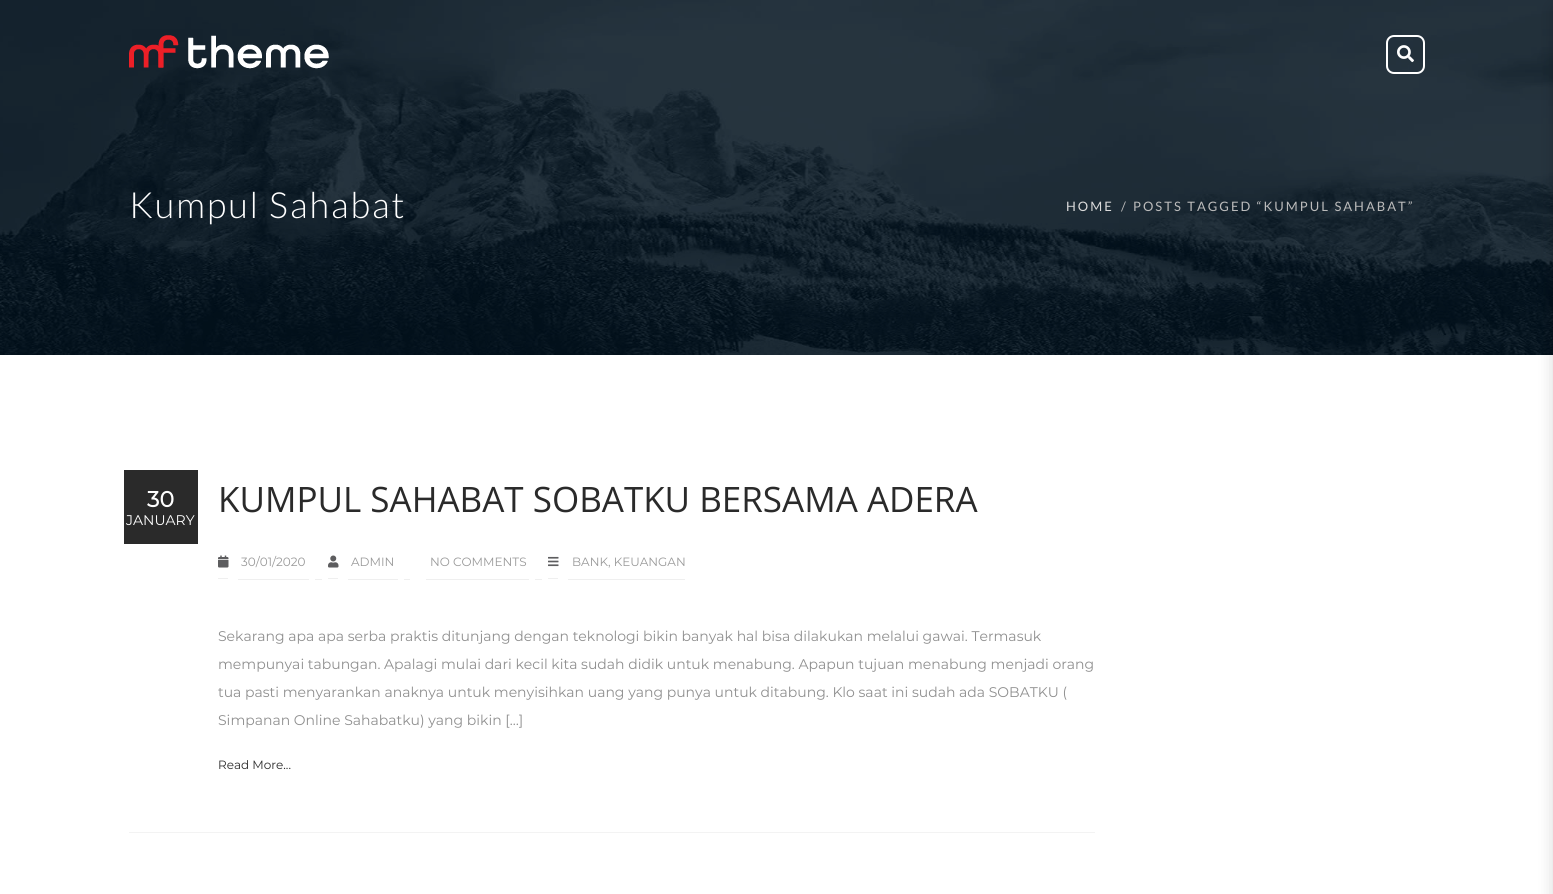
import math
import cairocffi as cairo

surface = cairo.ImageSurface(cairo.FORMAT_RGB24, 1553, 894)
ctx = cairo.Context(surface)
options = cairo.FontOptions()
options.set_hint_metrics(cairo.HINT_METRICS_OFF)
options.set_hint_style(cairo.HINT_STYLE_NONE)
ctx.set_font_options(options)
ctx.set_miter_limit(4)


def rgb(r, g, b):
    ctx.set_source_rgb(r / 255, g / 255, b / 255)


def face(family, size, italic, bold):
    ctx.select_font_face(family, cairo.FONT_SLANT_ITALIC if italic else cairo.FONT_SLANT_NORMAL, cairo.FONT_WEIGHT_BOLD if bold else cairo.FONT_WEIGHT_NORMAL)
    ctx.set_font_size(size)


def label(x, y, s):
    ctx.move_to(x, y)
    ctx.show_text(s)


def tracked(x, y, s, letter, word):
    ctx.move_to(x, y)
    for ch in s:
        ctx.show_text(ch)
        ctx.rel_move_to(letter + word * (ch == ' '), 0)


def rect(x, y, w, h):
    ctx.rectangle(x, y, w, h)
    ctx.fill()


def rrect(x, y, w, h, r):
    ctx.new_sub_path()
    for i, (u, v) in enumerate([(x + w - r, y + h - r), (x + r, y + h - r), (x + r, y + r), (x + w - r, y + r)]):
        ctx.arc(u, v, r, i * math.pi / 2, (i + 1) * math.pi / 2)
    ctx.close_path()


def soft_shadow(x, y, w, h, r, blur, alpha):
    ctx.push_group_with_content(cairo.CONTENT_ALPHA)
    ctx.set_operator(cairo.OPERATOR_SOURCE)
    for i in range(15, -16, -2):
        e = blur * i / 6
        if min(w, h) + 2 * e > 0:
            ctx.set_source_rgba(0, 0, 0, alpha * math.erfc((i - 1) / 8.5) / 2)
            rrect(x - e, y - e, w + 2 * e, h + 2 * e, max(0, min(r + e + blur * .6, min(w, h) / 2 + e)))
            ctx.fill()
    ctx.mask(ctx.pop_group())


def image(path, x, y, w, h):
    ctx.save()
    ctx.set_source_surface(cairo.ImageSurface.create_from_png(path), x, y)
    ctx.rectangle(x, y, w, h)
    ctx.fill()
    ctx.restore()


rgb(255, 255, 255)
ctx.paint()
image('image2.png', 0, 0, 1553, 355)
image('image0.png', 129, 35, 200, 34)
rrect(1387, 36, 37, 37, 7)
rgb(255, 255, 255)
ctx.stroke()
image('image1.png', 1397, 45, 17, 18)
face('Lato Light', 36, 0, 0)
tracked(129, 218, 'Kumpul Sahabat', 2, 0)
face('Lato', 13, 0, 0)
rgb(219, 219, 219)
tracked(1066, 211, 'HOME', 2, 0)
rgb(187, 187, 187)
tracked(1121, 211, '/', 2, 0)
tracked(1133, 211, 'POSTS TAGGED “KUMPUL SAHABAT”', 2, 0)
rgb(243, 243, 243)
rect(129, 832, 966, 1)
rgb(42, 42, 42)
rect(124, 470, 74, 74)
face('Montserrat', 22, 0, 1)
rgb(255, 255, 255)
label(147, 507, '30')
face('Montserrat Thin', 14, 0, 0)
label(126, 525, 'JANUARY')
face('Open Sans', 35, 0, 0)
rgb(42, 42, 42)
label(218, 512, 'KUMPUL SAHABAT SOBATKU BERSAMA ADERA')
rgb(239, 239, 239)
rect(218, 578, 10, 1)
rect(238, 579, 71, 1)
rect(315, 579, 7, 1)
image('image3.png', 218, 555, 11, 13)
face('Montserrat Thin', 12, 0, 0)
rgb(153, 153, 153)
label(241, 566, '30/01/2020')
rgb(239, 239, 239)
rect(328, 578, 10, 1)
rect(348, 579, 50, 1)
rect(404, 579, 6, 1)
image('image4.png', 328, 555, 11, 13)
rgb(153, 153, 153)
label(351, 566, 'ADMIN')
label(430, 566, 'NO COMMENTS')
rgb(239, 239, 239)
rect(426, 579, 103, 1)
rect(535, 579, 7, 1)
rect(548, 578, 10, 1)
rect(568, 579, 117, 1)
image('image5.png', 548, 556, 11, 11)
rgb(153, 153, 153)
label(572, 566, 'BANK, KEUANGAN')
face('Montserrat Thin', 14, 0, 0)
rgb(143, 143, 143)
label(218, 641, 'Sekarang apa apa serba praktis ditunjang dengan teknologi bikin banyak hal bisa dilakukan melalui gawai. Termasuk')
label(218, 669, 'mempunyai tabungan. Apalagi mulai dari kecil kita sudah didik untuk menabung. Apapun tujuan menabung menjadi orang')
label(218, 697, 'tua pasti menyarankan anaknya untuk menyisihkan uang yang punya untuk ditabung. Klo saat ini sudah ada SOBATKU (')
label(218, 725, 'Simpanan Online Sahabatku) yang bikin […]')
face('Montserrat Thin', 12, 0, 0)
rgb(42, 42, 42)
label(218, 769, 'Read More...')
rgb(0, 0, 0)
soft_shadow(1553, 8, 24, 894, 0, 8, 0.15)
surface.write_to_png('render.png')
